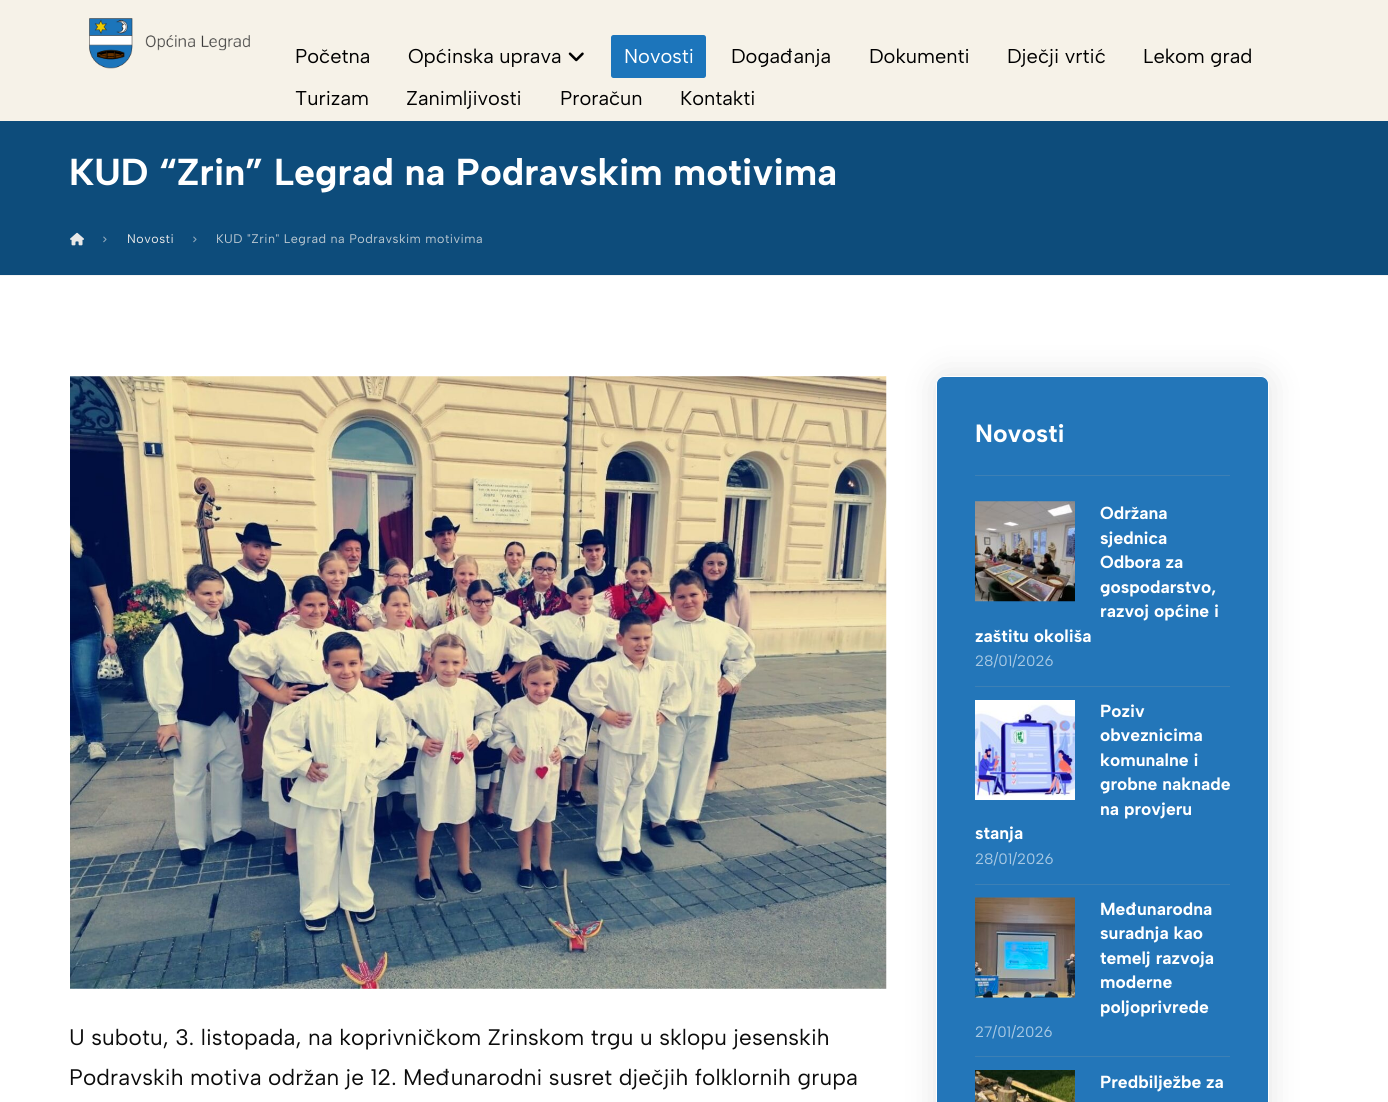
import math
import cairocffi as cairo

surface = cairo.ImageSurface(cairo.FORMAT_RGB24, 1388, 1102)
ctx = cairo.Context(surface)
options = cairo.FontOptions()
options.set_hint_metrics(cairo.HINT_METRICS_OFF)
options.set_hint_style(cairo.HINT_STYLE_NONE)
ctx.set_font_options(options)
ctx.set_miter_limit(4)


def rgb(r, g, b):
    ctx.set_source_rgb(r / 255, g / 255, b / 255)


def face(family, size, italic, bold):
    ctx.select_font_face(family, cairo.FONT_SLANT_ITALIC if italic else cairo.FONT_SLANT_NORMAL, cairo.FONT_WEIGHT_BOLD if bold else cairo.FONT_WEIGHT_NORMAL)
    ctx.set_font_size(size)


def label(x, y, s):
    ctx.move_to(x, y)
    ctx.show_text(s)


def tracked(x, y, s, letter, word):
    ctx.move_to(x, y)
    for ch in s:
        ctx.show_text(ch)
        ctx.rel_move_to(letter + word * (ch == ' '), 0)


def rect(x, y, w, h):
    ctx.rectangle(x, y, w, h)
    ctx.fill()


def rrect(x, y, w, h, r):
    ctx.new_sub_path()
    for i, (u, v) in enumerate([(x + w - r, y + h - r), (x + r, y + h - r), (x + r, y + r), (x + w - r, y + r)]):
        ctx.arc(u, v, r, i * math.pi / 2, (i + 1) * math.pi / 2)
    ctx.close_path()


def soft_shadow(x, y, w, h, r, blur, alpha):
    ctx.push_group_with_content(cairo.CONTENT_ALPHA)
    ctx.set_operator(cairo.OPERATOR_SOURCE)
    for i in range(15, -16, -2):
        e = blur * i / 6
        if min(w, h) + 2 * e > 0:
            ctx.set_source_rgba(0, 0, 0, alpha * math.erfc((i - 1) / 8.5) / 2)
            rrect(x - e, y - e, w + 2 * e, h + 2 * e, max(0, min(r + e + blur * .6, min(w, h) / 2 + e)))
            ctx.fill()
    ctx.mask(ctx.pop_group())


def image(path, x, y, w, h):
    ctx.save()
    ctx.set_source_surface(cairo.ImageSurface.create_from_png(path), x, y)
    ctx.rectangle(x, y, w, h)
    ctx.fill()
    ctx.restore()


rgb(255, 255, 255)
ctx.paint()
rgb(246, 242, 232)
rect(0, 0, 1388, 121)
image('image0.png', 89, 18, 161, 51)
face('Albert Sans', 20, 0, 0)
rgb(0, 0, 0)
label(295, 63, 'Početna')
label(408, 63, 'Općinska uprava')
image('image1.png', 568, 52, 16, 10)
rgb(28, 117, 187)
rrect(611, 35, 95, 43, 2.5)
ctx.fill()
rgb(255, 255, 255)
label(624, 63, 'Novosti')
rgb(0, 0, 0)
label(731, 63, 'Događanja')
label(869, 63, 'Dokumenti')
label(1007, 63, 'Dječji vrtić')
label(1143, 63, 'Lekom grad')
label(295, 105, 'Turizam')
label(406, 105, 'Zanimljivosti')
label(560, 105, 'Proračun')
label(680, 105, 'Kontakti')
rgb(13, 76, 123)
rect(0, 121, 1388, 154)
rgb(244, 244, 244)
rect(0, 275, 1388, 1)
face('Albert Sans', 37.5, 0, 1)
rgb(255, 255, 255)
label(69, 185, 'KUD “Zrin” Legrad na Podravskim motivima')
image('image2.png', 70, 232, 14, 14)
image('image3.png', 103, 236, 4, 7)
face('Albert Sans', 12.5, 0, 0)
rgb(232, 232, 232)
tracked(127, 243, 'Novosti', 0.5, 0)
image('image3.png', 193, 236, 4, 7)
rgb(188, 201, 210)
tracked(216, 243, 'KUD "Zrin" Legrad na Podravskim motivima', 0.5, 0)
image('image4.png', 70, 376, 817, 613)
face('Albert Sans', 22.5, 0, 0)
rgb(12, 12, 12)
tracked(69, 1045, 'U subotu, 3. listopada, na koprivničkom Zrinskom trgu u sklopu jesenskih', 0.12, 0)
tracked(69, 1085, 'Podravskih motiva održan je 12. Međunarodni susret dječjih folklornih grupa', 0.12, 0)
rgb(0, 0, 0)
soft_shadow(936, 376, 333, 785, 8, 17, 0.11)
rgb(35, 118, 185)
rrect(936.5, 376.5, 332, 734, 7.5)
ctx.fill_preserve()
rgb(255, 255, 255)
ctx.set_line_width(1)
ctx.stroke()
rgb(61, 128, 181)
rect(975, 475, 255, 1)
face('Albert Sans', 25, 0, 1)
rgb(255, 255, 255)
label(975, 442, 'Novosti')
rgb(61, 128, 181)
rect(975, 686, 255, 1)
image('image5.png', 975, 501, 100, 101)
face('Albert Sans', 17.5, 0, 1)
rgb(255, 255, 255)
label(1100, 519, 'Održana')
label(1100, 544, 'sjednica')
label(1100, 568, 'Odbora za')
label(1100, 593, 'gospodarstvo,')
label(1100, 617, 'razvoj općine i')
label(975, 642, 'zaštitu okoliša')
face('Albert Sans', 15, 0, 0)
rgb(167, 200, 227)
label(975, 666, '28/01/2026')
rgb(61, 128, 181)
rect(975, 884, 255, 1)
image('image6.png', 975, 700, 100, 100)
face('Albert Sans', 17.5, 0, 1)
rgb(255, 255, 255)
label(1100, 717, 'Poziv')
label(1100, 741, 'obveznicima')
label(1100, 766, 'komunalne i')
label(1100, 790, 'grobne naknade')
label(1100, 815, 'na provjeru')
label(975, 839, 'stanja')
face('Albert Sans', 15, 0, 0)
rgb(167, 200, 227)
label(975, 864, '28/01/2026')
rgb(61, 128, 181)
rect(975, 1056, 255, 1)
rect(975, 997, 100, 1)
image('image7.png', 975, 897, 100, 101)
face('Albert Sans', 17.5, 0, 1)
rgb(255, 255, 255)
label(1100, 915, 'Međunarodna')
label(1100, 939, 'suradnja kao')
label(1100, 964, 'temelj razvoja')
label(1100, 988, 'moderne')
label(1100, 1013, 'poljoprivrede')
face('Albert Sans', 15, 0, 0)
rgb(167, 200, 227)
label(975, 1037, '27/01/2026')
image('image8.png', 975, 1070, 100, 32)
face('Albert Sans', 17.5, 0, 1)
rgb(255, 255, 255)
label(1100, 1088, 'Predbilježbe za')
surface.write_to_png('render.png')
